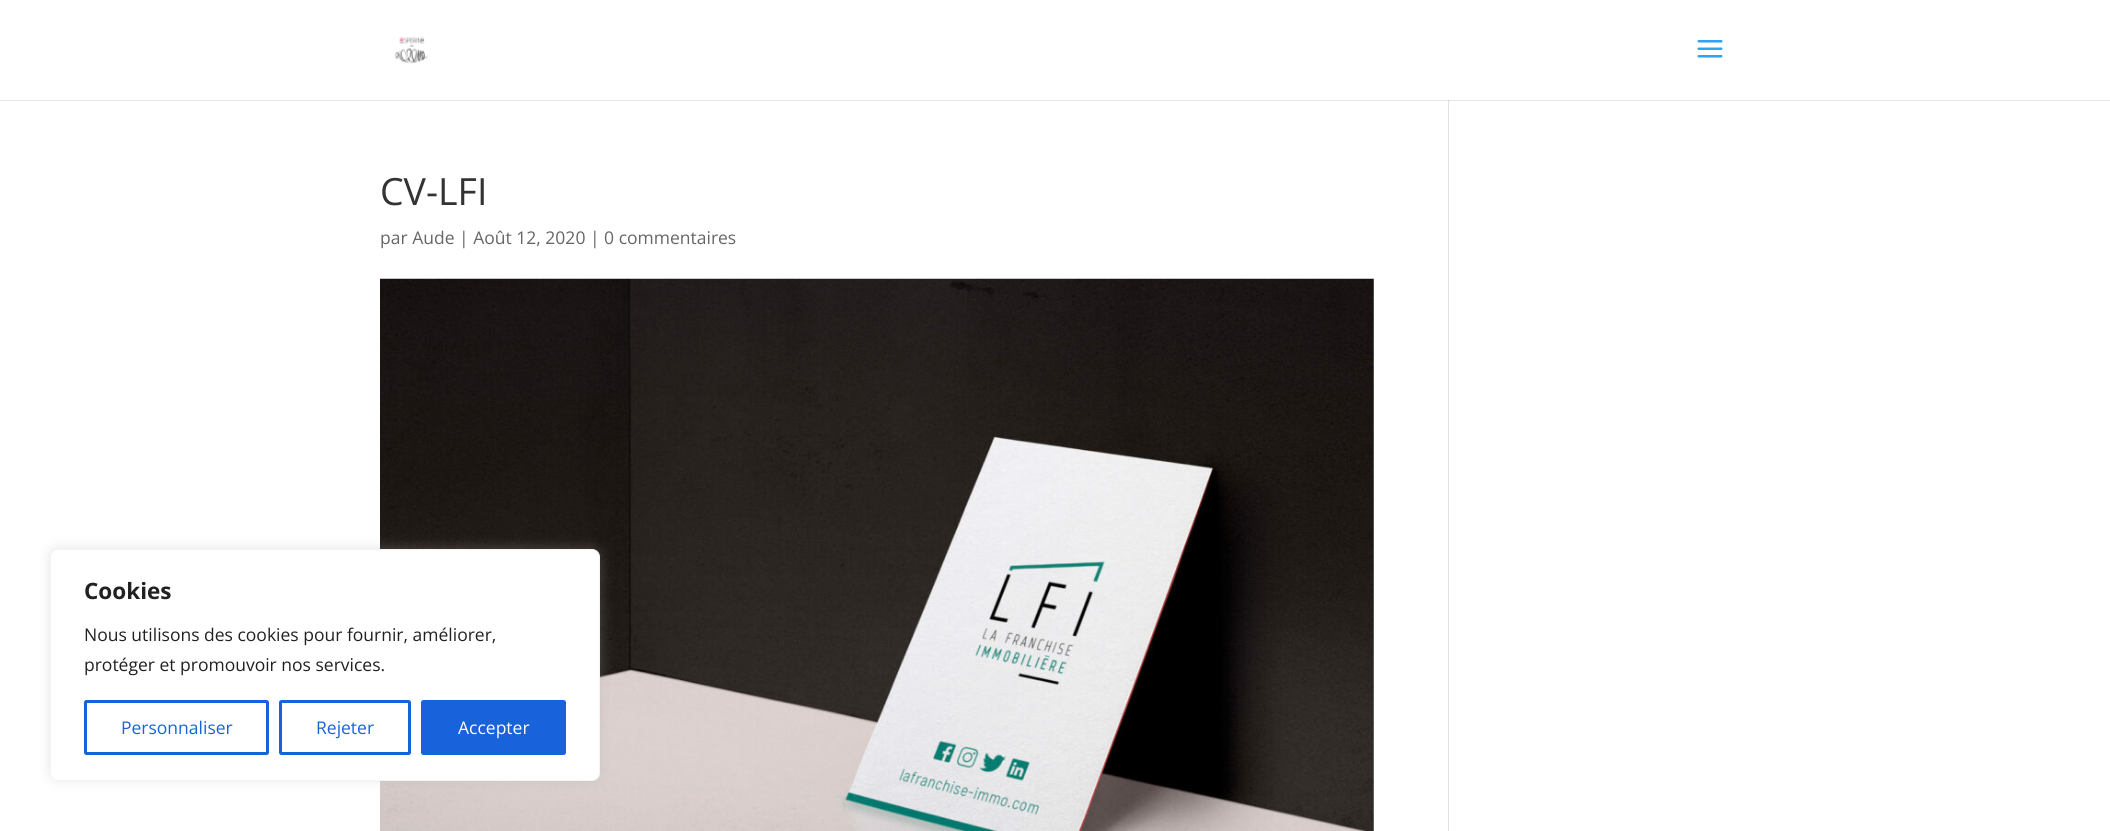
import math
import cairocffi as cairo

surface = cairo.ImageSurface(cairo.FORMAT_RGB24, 2110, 831)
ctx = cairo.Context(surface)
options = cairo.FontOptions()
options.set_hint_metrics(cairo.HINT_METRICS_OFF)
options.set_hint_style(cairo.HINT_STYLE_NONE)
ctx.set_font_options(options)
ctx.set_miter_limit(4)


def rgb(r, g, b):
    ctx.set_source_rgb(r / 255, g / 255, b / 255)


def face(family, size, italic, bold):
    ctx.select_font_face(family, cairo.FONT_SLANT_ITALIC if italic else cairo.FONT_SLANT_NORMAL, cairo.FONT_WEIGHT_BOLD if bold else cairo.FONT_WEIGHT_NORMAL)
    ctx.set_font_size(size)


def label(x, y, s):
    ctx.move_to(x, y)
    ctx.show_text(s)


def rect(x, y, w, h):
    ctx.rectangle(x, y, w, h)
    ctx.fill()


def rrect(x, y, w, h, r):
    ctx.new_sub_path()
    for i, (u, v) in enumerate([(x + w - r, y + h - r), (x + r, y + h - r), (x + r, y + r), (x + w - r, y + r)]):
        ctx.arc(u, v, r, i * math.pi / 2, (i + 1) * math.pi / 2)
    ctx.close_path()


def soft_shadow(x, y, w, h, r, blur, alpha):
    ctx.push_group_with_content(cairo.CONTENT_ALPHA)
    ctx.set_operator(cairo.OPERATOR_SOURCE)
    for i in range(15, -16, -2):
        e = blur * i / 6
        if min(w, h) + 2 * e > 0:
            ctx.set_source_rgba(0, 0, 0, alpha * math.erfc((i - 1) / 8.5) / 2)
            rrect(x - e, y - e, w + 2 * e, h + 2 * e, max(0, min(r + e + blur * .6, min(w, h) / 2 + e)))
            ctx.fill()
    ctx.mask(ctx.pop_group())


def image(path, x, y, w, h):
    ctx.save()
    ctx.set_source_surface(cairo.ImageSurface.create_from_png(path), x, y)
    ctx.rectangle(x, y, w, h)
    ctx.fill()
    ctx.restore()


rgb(255, 255, 255)
ctx.paint()
image('image0.png', 394, 37, 34, 27)
image('image1.png', 1697, 40, 26, 18)
rgb(230, 230, 230)
rect(0, 100, 2110, 1)
face('Open Sans', 37.5, 0, 0)
rgb(51, 51, 51)
label(380, 205, 'CV-LFI')
face('Open Sans', 17.5, 0, 0)
rgb(102, 102, 102)
label(380, 244, 'par Aude | Août 12, 2020 | 0 commentaires')
image('image2.png', 380, 278, 994, 553)
rgb(226, 226, 226)
rect(1448, 100, 1, 731)
rgb(203, 203, 203)
rect(1448, 100, 1, 1)
rgb(172, 171, 171)
soft_shadow(50, 548, 550, 232, 8, 6, 0.3)
rgb(255, 255, 255)
rrect(50.5, 549.5, 549, 231, 7.5)
ctx.fill_preserve()
rgb(244, 244, 244)
ctx.set_line_width(1)
ctx.stroke()
face('Open Sans', 22.5, 0, 1)
rgb(33, 33, 33)
label(84, 599, 'Cookies')
face('Open Sans', 17.5, 0, 0)
label(84, 641, 'Nous utilisons des cookies pour fournir, améliorer,')
label(84, 671, 'protéger et promouvoir nos services.')
rrect(85.5, 701.5, 182, 52, 1)
rgb(24, 99, 220)
ctx.set_line_width(3)
ctx.stroke()
label(121, 734, 'Personnaliser')
rrect(280.5, 701.5, 129, 52, 1)
ctx.stroke()
label(316, 734, 'Rejeter')
rrect(422.5, 701.5, 142, 52, 1)
ctx.fill_preserve()
ctx.stroke()
rgb(255, 255, 255)
label(458, 734, 'Accepter')
surface.write_to_png('render.png')
